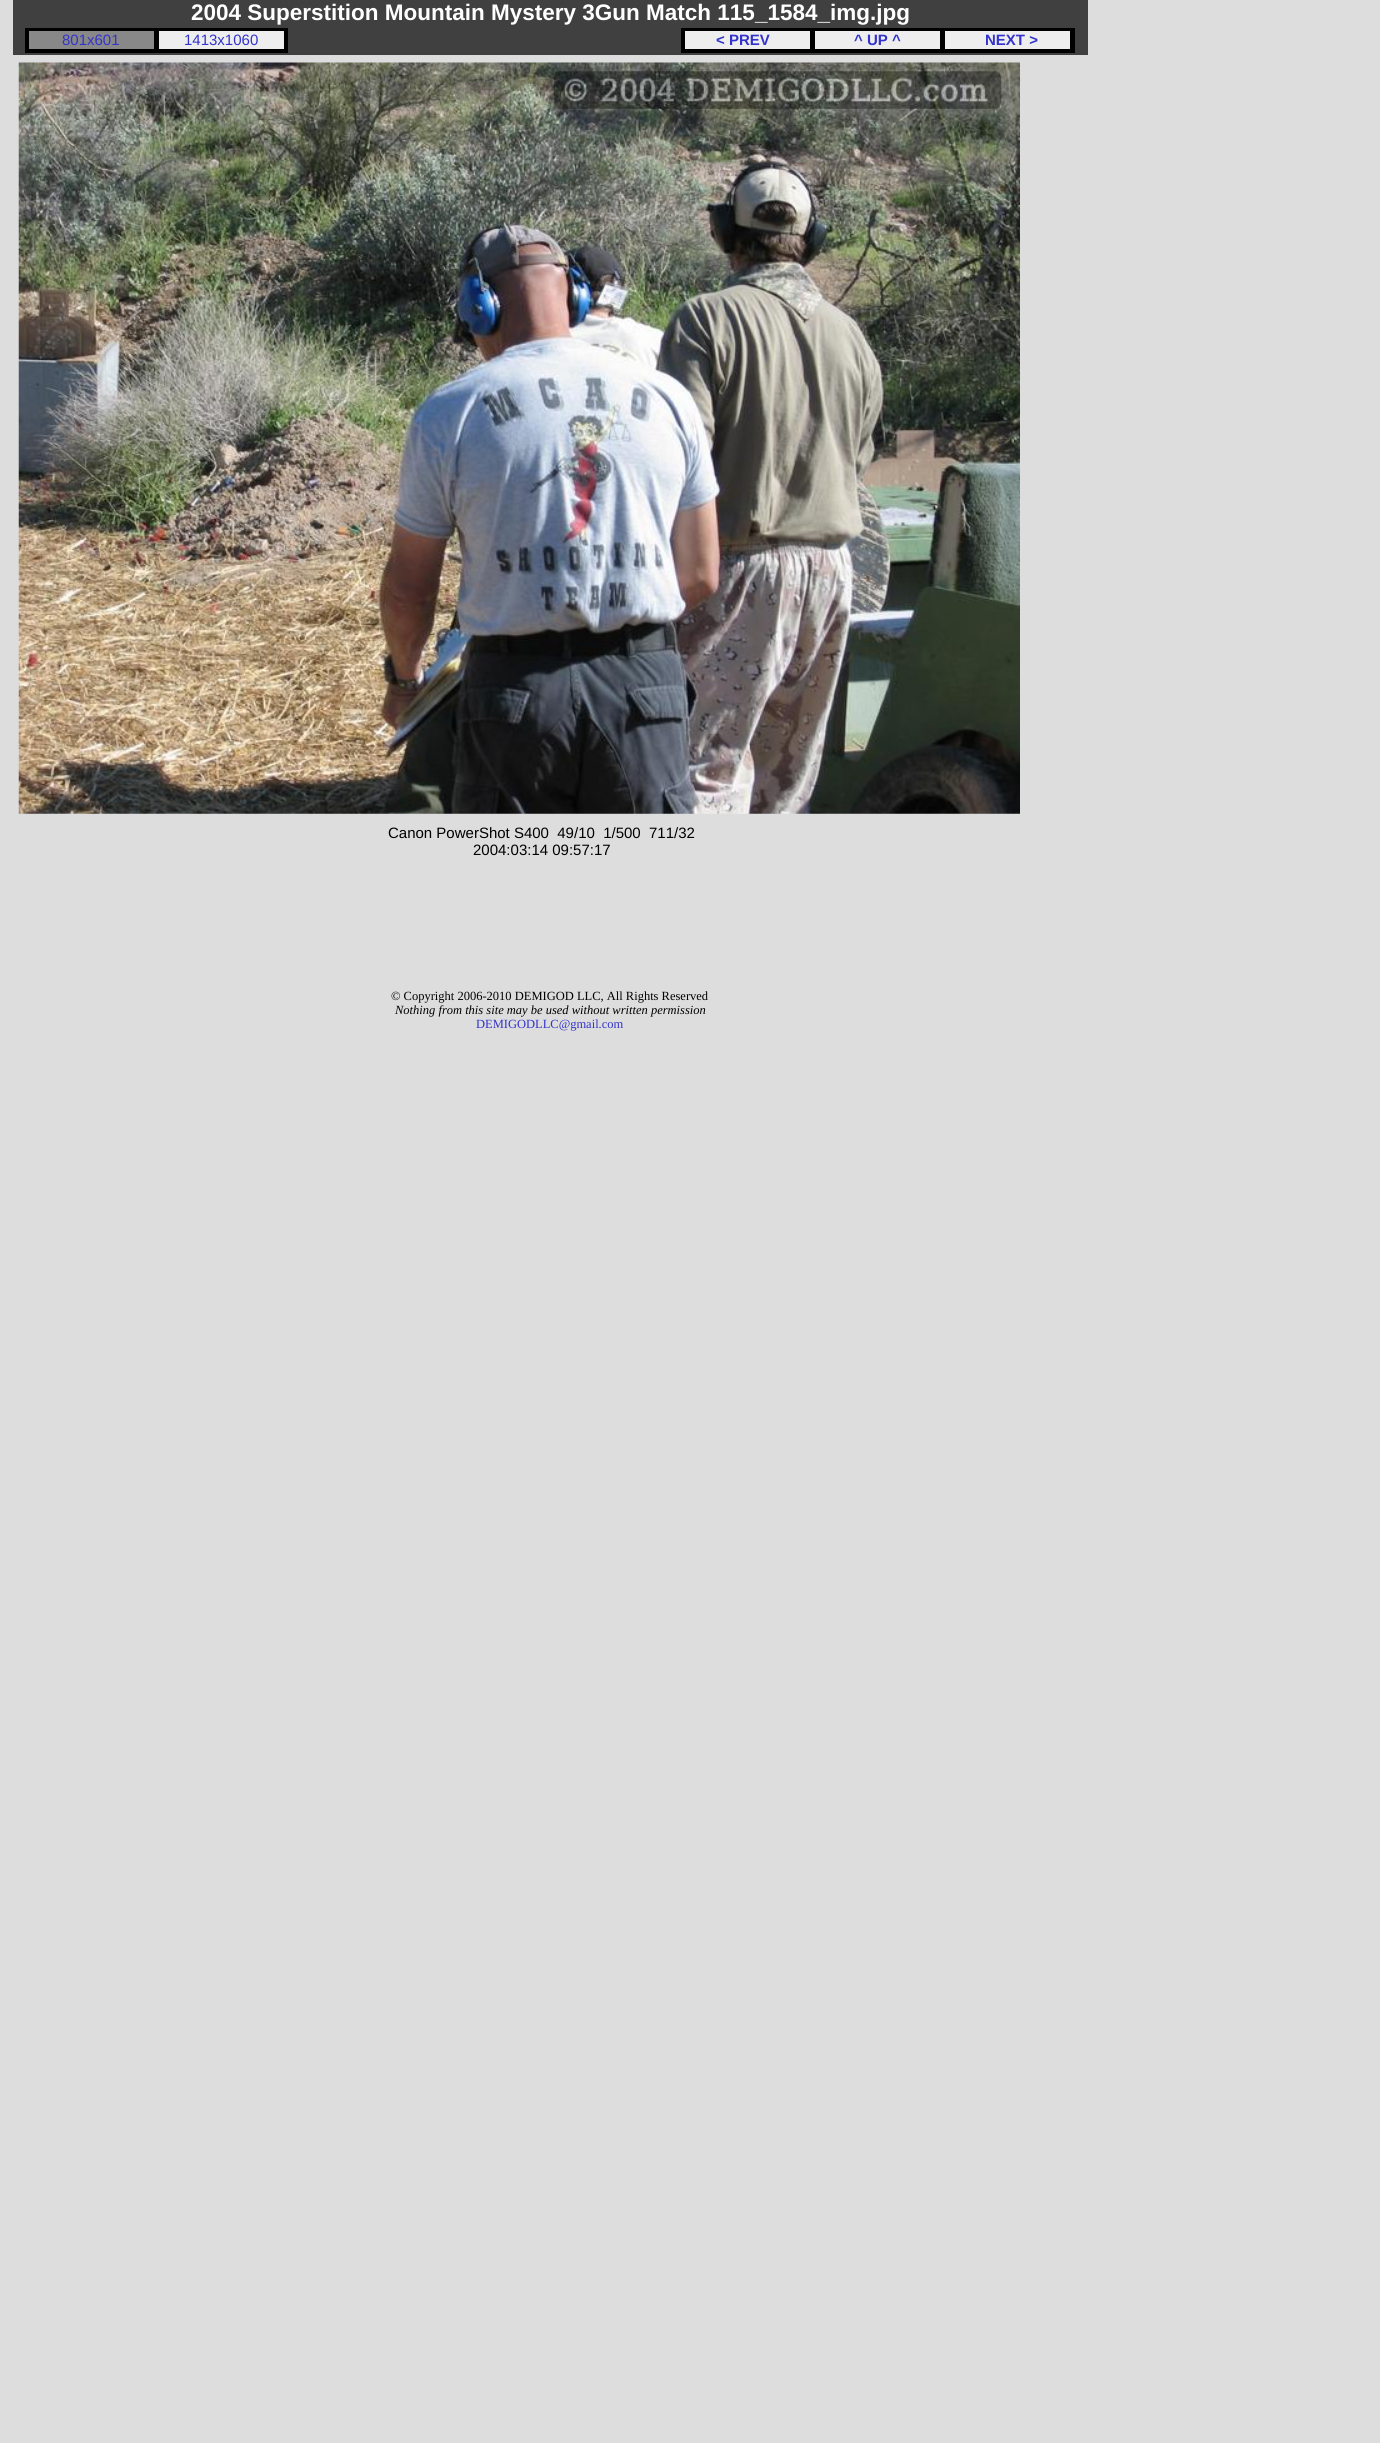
import math
import cairocffi as cairo

surface = cairo.ImageSurface(cairo.FORMAT_RGB24, 1380, 2443)
ctx = cairo.Context(surface)
options = cairo.FontOptions()
options.set_hint_metrics(cairo.HINT_METRICS_OFF)
options.set_hint_style(cairo.HINT_STYLE_NONE)
ctx.set_font_options(options)
ctx.set_miter_limit(4)


def rgb(r, g, b):
    ctx.set_source_rgb(r / 255, g / 255, b / 255)


def face(family, size, italic, bold):
    ctx.select_font_face(family, cairo.FONT_SLANT_ITALIC if italic else cairo.FONT_SLANT_NORMAL, cairo.FONT_WEIGHT_BOLD if bold else cairo.FONT_WEIGHT_NORMAL)
    ctx.set_font_size(size)


def label(x, y, s):
    ctx.move_to(x, y)
    ctx.show_text(s)


def rect(x, y, w, h):
    ctx.rectangle(x, y, w, h)
    ctx.fill()


def image(path, x, y, w, h):
    ctx.save()
    ctx.set_source_surface(cairo.ImageSurface.create_from_png(path), x, y)
    ctx.rectangle(x, y, w, h)
    ctx.fill()
    ctx.restore()


rgb(221, 221, 221)
ctx.paint()
rgb(64, 64, 64)
rect(13, 0, 1075, 55)
face('Liberation Sans', 22.5, 0, 1)
rgb(255, 255, 255)
label(191, 20, '2004 Superstition Mountain Mystery 3Gun Match 115_1584_img.jpg')
rgb(0, 0, 0)
rect(25, 28, 263, 25)
rgb(136, 136, 136)
rect(29, 31, 125, 18)
face('Liberation Sans', 15, 0, 0)
rgb(51, 51, 204)
label(62, 45, '801x601')
rgb(238, 238, 238)
rect(159, 31, 125, 18)
rgb(51, 51, 204)
label(184, 45, '1413x1060')
rgb(0, 0, 0)
rect(681, 28, 394, 25)
rgb(238, 238, 238)
rect(685, 31, 125, 18)
face('Liberation Sans', 15, 0, 1)
rgb(51, 51, 204)
label(716, 45, '< PREV')
rgb(238, 238, 238)
rect(815, 31, 125, 18)
rgb(51, 51, 204)
label(854, 45, '^ UP ^')
rgb(238, 238, 238)
rect(945, 31, 125, 18)
rgb(51, 51, 204)
label(985, 45, 'NEXT >')
image('image0.png', 18, 62, 1002, 752)
face('Liberation Sans', 15, 0, 0)
rgb(0, 0, 0)
label(388, 838, 'Canon PowerShot S400  49/10  1/500  711/32')
label(473, 855, '2004:03:14 09:57:17')
face('Liberation Serif', 12.5, 0, 0)
label(391, 1000, '© Copyright 2006-2010 DEMIGOD LLC, All Rights Reserved')
face('Liberation Serif', 12.5, 1, 0)
label(395, 1014, 'Nothing from this site may be used without written permission')
face('Liberation Serif', 12.5, 0, 0)
rgb(51, 51, 204)
label(476, 1028, 'DEMIGODLLC@gmail.com')
surface.write_to_png('render.png')
